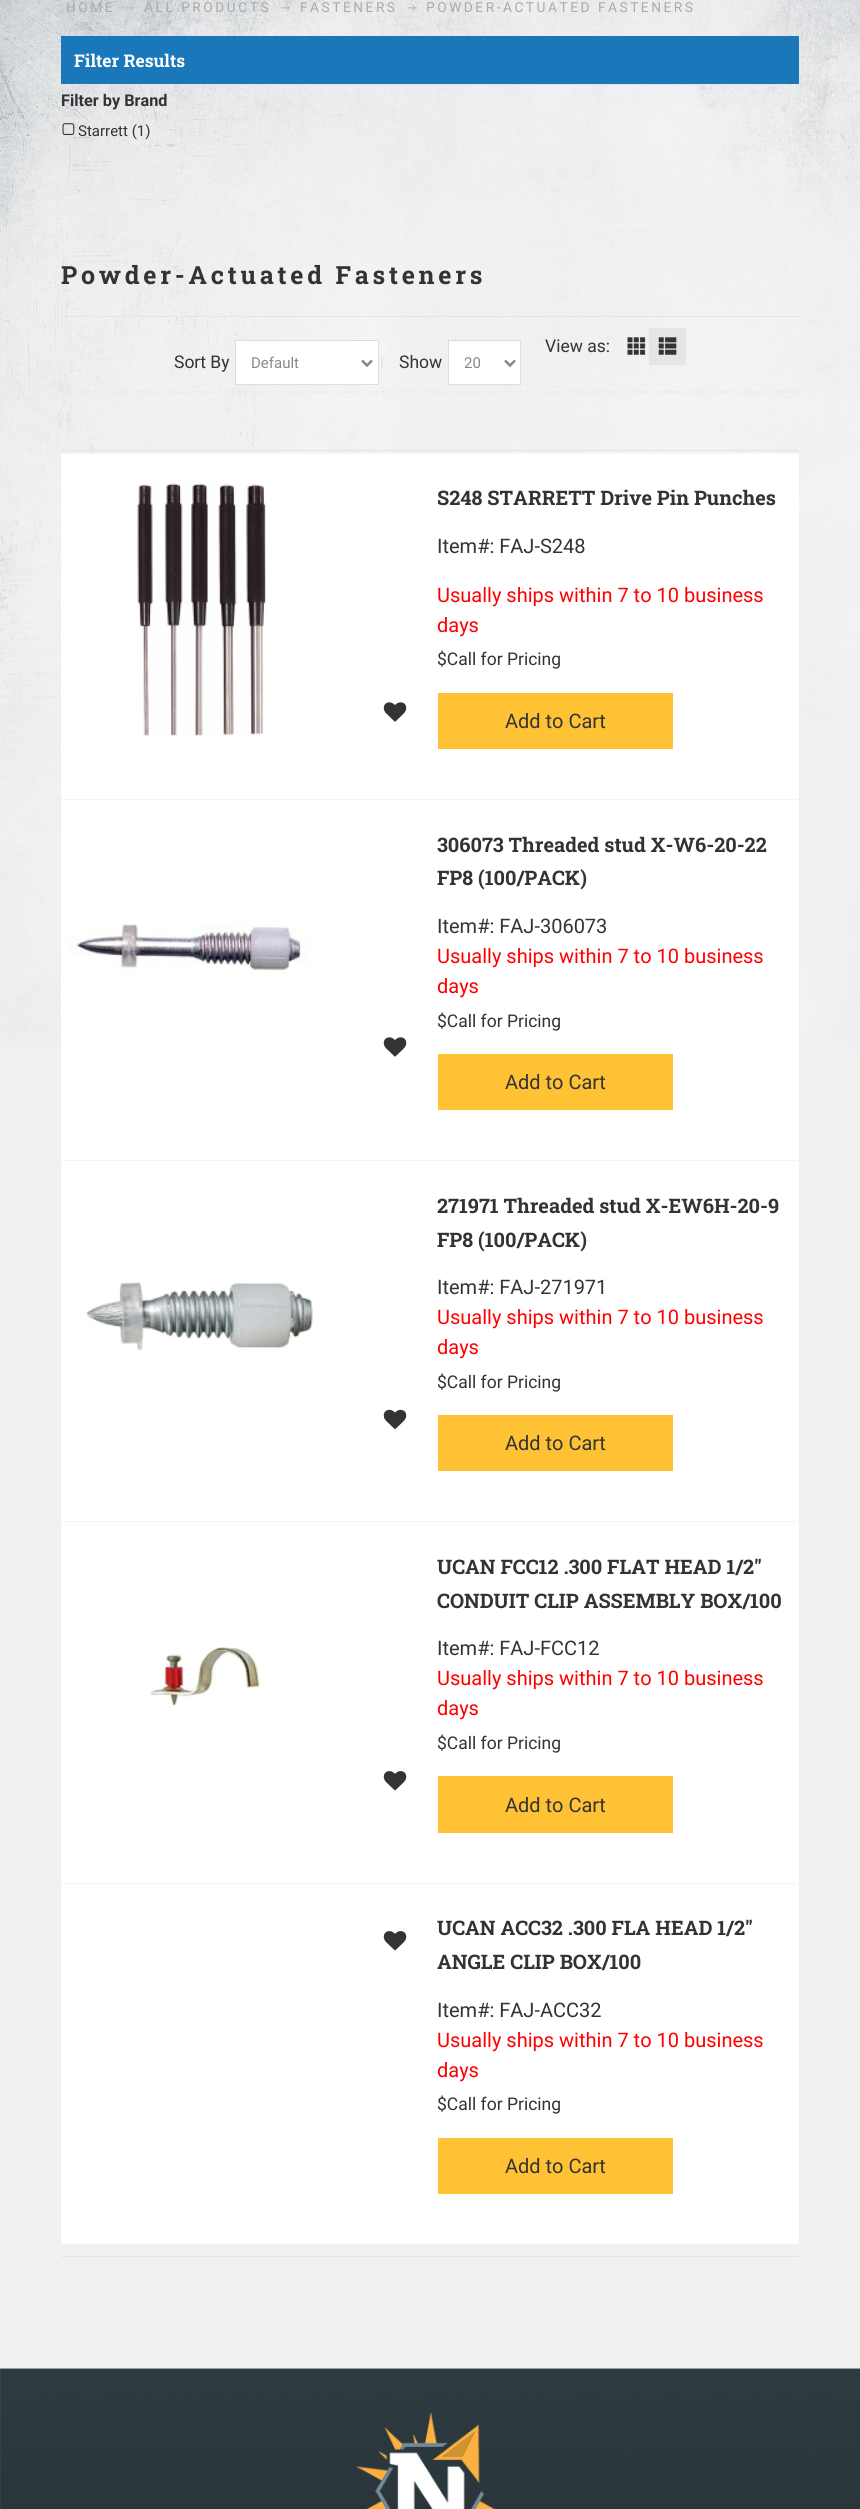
import math
import cairocffi as cairo

surface = cairo.ImageSurface(cairo.FORMAT_RGB24, 860, 2509)
ctx = cairo.Context(surface)
options = cairo.FontOptions()
options.set_hint_metrics(cairo.HINT_METRICS_OFF)
options.set_hint_style(cairo.HINT_STYLE_NONE)
ctx.set_font_options(options)
ctx.set_miter_limit(4)


def rgb(r, g, b):
    ctx.set_source_rgb(r / 255, g / 255, b / 255)


def face(family, size, italic, bold):
    ctx.select_font_face(family, cairo.FONT_SLANT_ITALIC if italic else cairo.FONT_SLANT_NORMAL, cairo.FONT_WEIGHT_BOLD if bold else cairo.FONT_WEIGHT_NORMAL)
    ctx.set_font_size(size)


def label(x, y, s):
    ctx.move_to(x, y)
    ctx.show_text(s)


def tracked(x, y, s, letter, word):
    ctx.move_to(x, y)
    for ch in s:
        ctx.show_text(ch)
        ctx.rel_move_to(letter + word * (ch == ' '), 0)


def rect(x, y, w, h):
    ctx.rectangle(x, y, w, h)
    ctx.fill()


def image(path, x, y, w, h):
    ctx.save()
    ctx.set_source_surface(cairo.ImageSurface.create_from_png(path), x, y)
    ctx.rectangle(x, y, w, h)
    ctx.fill()
    ctx.restore()


rgb(255, 255, 255)
ctx.paint()
image('image0.png', 0, 0, 860, 2369)
face('Roboto', 13.75, 0, 0)
rgb(170, 170, 170)
tracked(66, 12, 'HOME', 2.5, 0)
image('image1.png', 125, 4, 9, 7)
tracked(144, 12, 'ALL PRODUCTS', 2.5, 0)
image('image2.png', 281, 4, 9, 7)
tracked(300, 12, 'FASTENERS', 2.5, 0)
image('image3.png', 407, 4, 10, 7)
tracked(426, 12, 'POWDER-ACTUATED FASTENERS', 2.5, 0)
rgb(25, 119, 186)
rect(61, 36, 738, 48)
rgb(229, 229, 229)
rect(61, 84, 738, 1)
face('Roboto Slab', 17.5, 0, 1)
rgb(255, 255, 255)
label(74, 67, 'Filter Results')
face('Roboto', 16.25, 0, 1)
rgb(51, 51, 51)
label(61, 106, 'Filter by Brand')
rgb(238, 238, 238)
rect(61, 123, 1, 15)
rect(150, 121, 1, 18)
image('image4.png', 62, 123, 13, 12)
face('Roboto', 15, 0, 0)
rgb(51, 51, 51)
label(78, 136, 'Starrett (1)')
face('Roboto Slab', 25, 0, 1)
tracked(61, 284, 'Powder-Actuated Fasteners', 3.75, 0)
rgb(229, 229, 229)
rect(61, 316, 738, 1)
rect(61, 450, 738, 1)
face('Roboto', 17.5, 0, 0)
rgb(51, 51, 51)
label(545, 352, 'View as:')
image('image5.png', 627, 337, 19, 18)
rgb(229, 229, 229)
rect(649, 328, 37, 37)
image('image6.png', 658, 337, 19, 18)
image('image7.png', 381, 356, 2, 13)
rgb(51, 51, 51)
label(174, 368, 'Sort By')
rgb(255, 255, 255)
ctx.rectangle(235.5, 340.5, 143, 44)
ctx.fill_preserve()
rgb(221, 221, 221)
ctx.set_line_width(1)
ctx.stroke()
ctx.new_path()
ctx.move_to(362, 360.5)
ctx.line_to(367, 365.5)
ctx.line_to(372, 360.5)
rgb(136, 136, 136)
ctx.set_line_width(2.5)
ctx.stroke()
face('Roboto', 15, 0, 0)
label(251, 368, 'Default')
face('Roboto', 17.5, 0, 0)
rgb(51, 51, 51)
label(399, 368, 'Show')
rgb(255, 255, 255)
ctx.rectangle(448.5, 340.5, 72, 44)
ctx.fill_preserve()
rgb(221, 221, 221)
ctx.set_line_width(1)
ctx.stroke()
ctx.new_path()
ctx.move_to(505, 360.5)
ctx.line_to(510, 365.5)
ctx.line_to(515, 360.5)
rgb(136, 136, 136)
ctx.set_line_width(2.5)
ctx.stroke()
face('Roboto', 15, 0, 0)
label(464, 368, '20')
ctx.new_path()
ctx.move_to(61, 392)
ctx.line_to(799, 392)
rgb(229, 229, 229)
ctx.set_line_width(1.2)
ctx.set_dash([3.75, 2.52])
ctx.stroke()
rgb(255, 255, 255)
rect(61, 454, 738, 345)
rgb(245, 245, 245)
rect(61, 453, 738, 1)
image('image8.png', 137, 483, 129, 254)
image('image9.png', 383, 702, 24, 20)
face('Roboto Slab', 20, 0, 1)
rgb(51, 51, 51)
label(437, 505, 'S248 STARRETT Drive Pin Punches')
face('Roboto', 20, 0, 0)
label(437, 553, 'Item#: FAJ-S248')
rgb(255, 0, 0)
label(437, 602, 'Usually ships within 7 to 10 business')
label(437, 632, 'days')
face('Roboto', 17.5, 0, 0)
rgb(51, 51, 51)
label(437, 665, '$Call for Pricing')
rgb(255, 194, 52)
rect(438, 693, 235, 56)
face('Roboto', 20, 0, 0)
rgb(51, 51, 51)
label(505, 728, 'Add to Cart')
rgb(255, 255, 255)
rect(61, 800, 738, 360)
rgb(245, 245, 245)
rect(61, 799, 738, 1)
face('Roboto Slab', 20, 0, 1)
rgb(51, 51, 51)
label(437, 852, '306073 Threaded stud X-W6-20-22')
label(437, 885, 'FP8 (100/PACK)')
face('Roboto', 20, 0, 0)
label(437, 933, 'Item#: FAJ-306073')
image('image10.png', 69, 924, 240, 51)
image('image9.png', 383, 1037, 24, 20)
rgb(255, 0, 0)
label(437, 963, 'Usually ships within 7 to 10 business')
label(437, 993, 'days')
face('Roboto', 17.5, 0, 0)
rgb(51, 51, 51)
label(437, 1027, '$Call for Pricing')
rgb(255, 194, 52)
rect(438, 1054, 235, 56)
face('Roboto', 20, 0, 0)
rgb(51, 51, 51)
label(505, 1089, 'Add to Cart')
rgb(255, 255, 255)
rect(61, 1161, 738, 360)
rgb(245, 245, 245)
rect(61, 1160, 738, 1)
face('Roboto Slab', 20, 0, 1)
rgb(51, 51, 51)
label(437, 1213, '271971 Threaded stud X-EW6H-20-9')
label(437, 1247, 'FP8 (100/PACK)')
face('Roboto', 20, 0, 0)
label(437, 1294, 'Item#: FAJ-271971')
image('image11.png', 86, 1282, 227, 69)
image('image12.png', 383, 1409, 24, 20)
rgb(255, 0, 0)
label(437, 1324, 'Usually ships within 7 to 10 business')
label(437, 1354, 'days')
face('Roboto', 17.5, 0, 0)
rgb(51, 51, 51)
label(437, 1388, '$Call for Pricing')
rgb(255, 194, 52)
rect(438, 1415, 235, 56)
face('Roboto', 20, 0, 0)
rgb(51, 51, 51)
label(505, 1450, 'Add to Cart')
rgb(255, 255, 255)
rect(61, 1522, 738, 361)
rgb(245, 245, 245)
rect(61, 1521, 738, 1)
face('Roboto Slab', 20, 0, 1)
rgb(51, 51, 51)
label(437, 1574, 'UCAN FCC12 .300 FLAT HEAD 1/2"')
label(437, 1608, 'CONDUIT CLIP ASSEMBLY BOX/100')
face('Roboto', 20, 0, 0)
label(437, 1655, 'Item#: FAJ-FCC12')
image('image13.png', 150, 1647, 110, 59)
image('image14.png', 383, 1771, 24, 20)
rgb(255, 0, 0)
label(437, 1685, 'Usually ships within 7 to 10 business')
label(437, 1715, 'days')
face('Roboto', 17.5, 0, 0)
rgb(51, 51, 51)
label(437, 1749, '$Call for Pricing')
rgb(255, 194, 52)
rect(438, 1776, 235, 57)
face('Roboto', 20, 0, 0)
rgb(51, 51, 51)
label(505, 1812, 'Add to Cart')
rgb(255, 255, 255)
rect(61, 1884, 738, 360)
rgb(245, 245, 245)
rect(61, 1883, 738, 1)
image('image14.png', 383, 1931, 24, 20)
face('Roboto Slab', 20, 0, 1)
rgb(51, 51, 51)
label(437, 1935, 'UCAN ACC32 .300 FLA HEAD 1/2"')
label(437, 1969, 'ANGLE CLIP BOX/100')
face('Roboto', 20, 0, 0)
label(437, 2017, 'Item#: FAJ-ACC32')
rgb(255, 0, 0)
label(437, 2047, 'Usually ships within 7 to 10 business')
label(437, 2077, 'days')
face('Roboto', 17.5, 0, 0)
rgb(51, 51, 51)
label(437, 2110, '$Call for Pricing')
rgb(255, 194, 52)
rect(438, 2138, 235, 56)
face('Roboto', 20, 0, 0)
rgb(51, 51, 51)
label(505, 2173, 'Add to Cart')
rgb(229, 229, 229)
rect(61, 2256, 738, 1)
image('image15.png', 0, 2368, 860, 141)
image('image16.png', 356, 2413, 140, 96)
surface.write_to_png('render.png')
